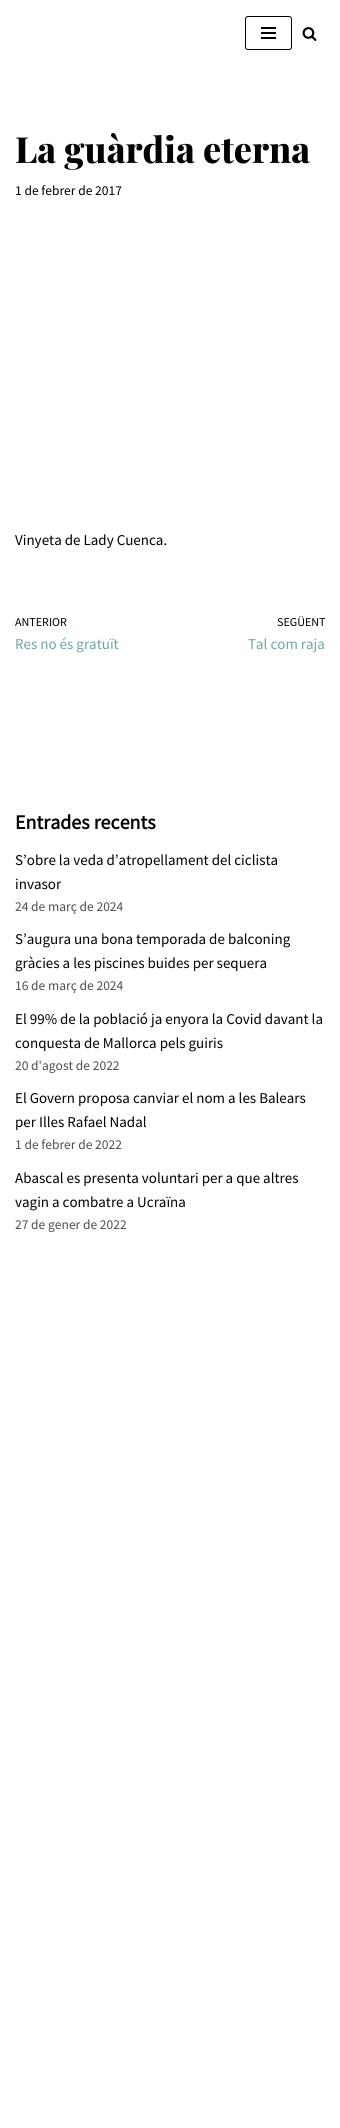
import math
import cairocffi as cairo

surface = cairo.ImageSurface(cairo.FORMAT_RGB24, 340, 2128)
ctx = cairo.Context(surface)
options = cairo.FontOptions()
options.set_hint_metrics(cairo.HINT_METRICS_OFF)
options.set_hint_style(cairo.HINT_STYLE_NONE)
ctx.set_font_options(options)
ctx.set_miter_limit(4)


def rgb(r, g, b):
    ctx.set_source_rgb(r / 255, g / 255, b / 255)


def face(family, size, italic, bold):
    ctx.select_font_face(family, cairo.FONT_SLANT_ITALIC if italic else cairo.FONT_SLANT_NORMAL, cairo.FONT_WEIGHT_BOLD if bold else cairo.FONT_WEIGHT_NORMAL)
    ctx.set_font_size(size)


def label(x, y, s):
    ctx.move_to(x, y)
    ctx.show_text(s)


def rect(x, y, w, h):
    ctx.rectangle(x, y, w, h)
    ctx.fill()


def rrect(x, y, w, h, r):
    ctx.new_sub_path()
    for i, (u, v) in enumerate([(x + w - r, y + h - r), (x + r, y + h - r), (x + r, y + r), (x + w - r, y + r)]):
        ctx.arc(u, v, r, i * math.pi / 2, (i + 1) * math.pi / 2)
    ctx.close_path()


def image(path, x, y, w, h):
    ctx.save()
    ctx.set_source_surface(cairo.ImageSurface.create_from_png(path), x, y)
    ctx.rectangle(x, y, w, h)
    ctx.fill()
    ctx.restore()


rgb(255, 255, 255)
ctx.paint()
rrect(245.5, 16.5, 46, 33, 2.5)
rgb(0, 0, 0)
ctx.set_line_width(1)
ctx.stroke()
rect(261, 27, 15, 2)
rect(261, 32, 15, 2)
rect(261, 37, 15, 2)
image('image0.png', 302, 27, 15, 14)
face('Playfair Display ExtraBold', 36, 0, 0)
label(15, 163, 'La guàrdia eterna')
face('Source Sans Pro', 13.5, 0, 0)
label(15, 195, '1 de febrer de 2017')
face('Source Sans Pro', 15, 0, 0)
label(15, 545, 'Vinyeta de Lady Cuenca.')
face('Source Sans Pro', 12, 0, 0)
label(15, 626, 'ANTERIOR')
face('Source Sans Pro', 15, 0, 0)
rgb(111, 165, 165)
label(15, 649, 'Res no és gratuït')
face('Source Sans Pro', 12, 0, 0)
rgb(0, 0, 0)
label(277, 626, 'SEGÜENT')
face('Source Sans Pro', 15, 0, 0)
rgb(111, 165, 165)
label(248, 649, 'Tal com raja')
face('Source Sans Pro', 20, 0, 1)
rgb(0, 0, 0)
label(15, 829, 'Entrades recents')
face('Source Sans Pro', 15, 0, 0)
label(15, 865, 'S’obre la veda d’atropellament del ciclista')
label(15, 889, 'invasor')
face('Source Sans Pro', 13.5, 0, 0)
rgb(77, 77, 77)
label(15, 911, '24 de març de 2024')
face('Source Sans Pro', 15, 0, 0)
rgb(0, 0, 0)
label(15, 944, 'S’augura una bona temporada de balconing')
label(15, 968, 'gràcies a les piscines buides per sequera')
face('Source Sans Pro', 13.5, 0, 0)
rgb(77, 77, 77)
label(15, 990, '16 de març de 2024')
face('Source Sans Pro', 15, 0, 0)
rgb(0, 0, 0)
label(15, 1024, 'El 99% de la població ja enyora la Covid davant la')
label(15, 1048, 'conquesta de Mallorca pels guiris')
face('Source Sans Pro', 13.5, 0, 0)
rgb(77, 77, 77)
label(15, 1070, '20 d\'agost de 2022')
face('Source Sans Pro', 15, 0, 0)
rgb(0, 0, 0)
label(15, 1103, 'El Govern proposa canviar el nom a les Balears')
label(15, 1127, 'per Illes Rafael Nadal')
face('Source Sans Pro', 13.5, 0, 0)
rgb(77, 77, 77)
label(15, 1149, '1 de febrer de 2022')
face('Source Sans Pro', 15, 0, 0)
rgb(0, 0, 0)
label(15, 1183, 'Abascal es presenta voluntari per a que altres')
label(15, 1207, 'vagin a combatre a Ucraïna')
face('Source Sans Pro', 13.5, 0, 0)
rgb(77, 77, 77)
label(15, 1229, '27 de gener de 2022')
surface.write_to_png('render.png')
